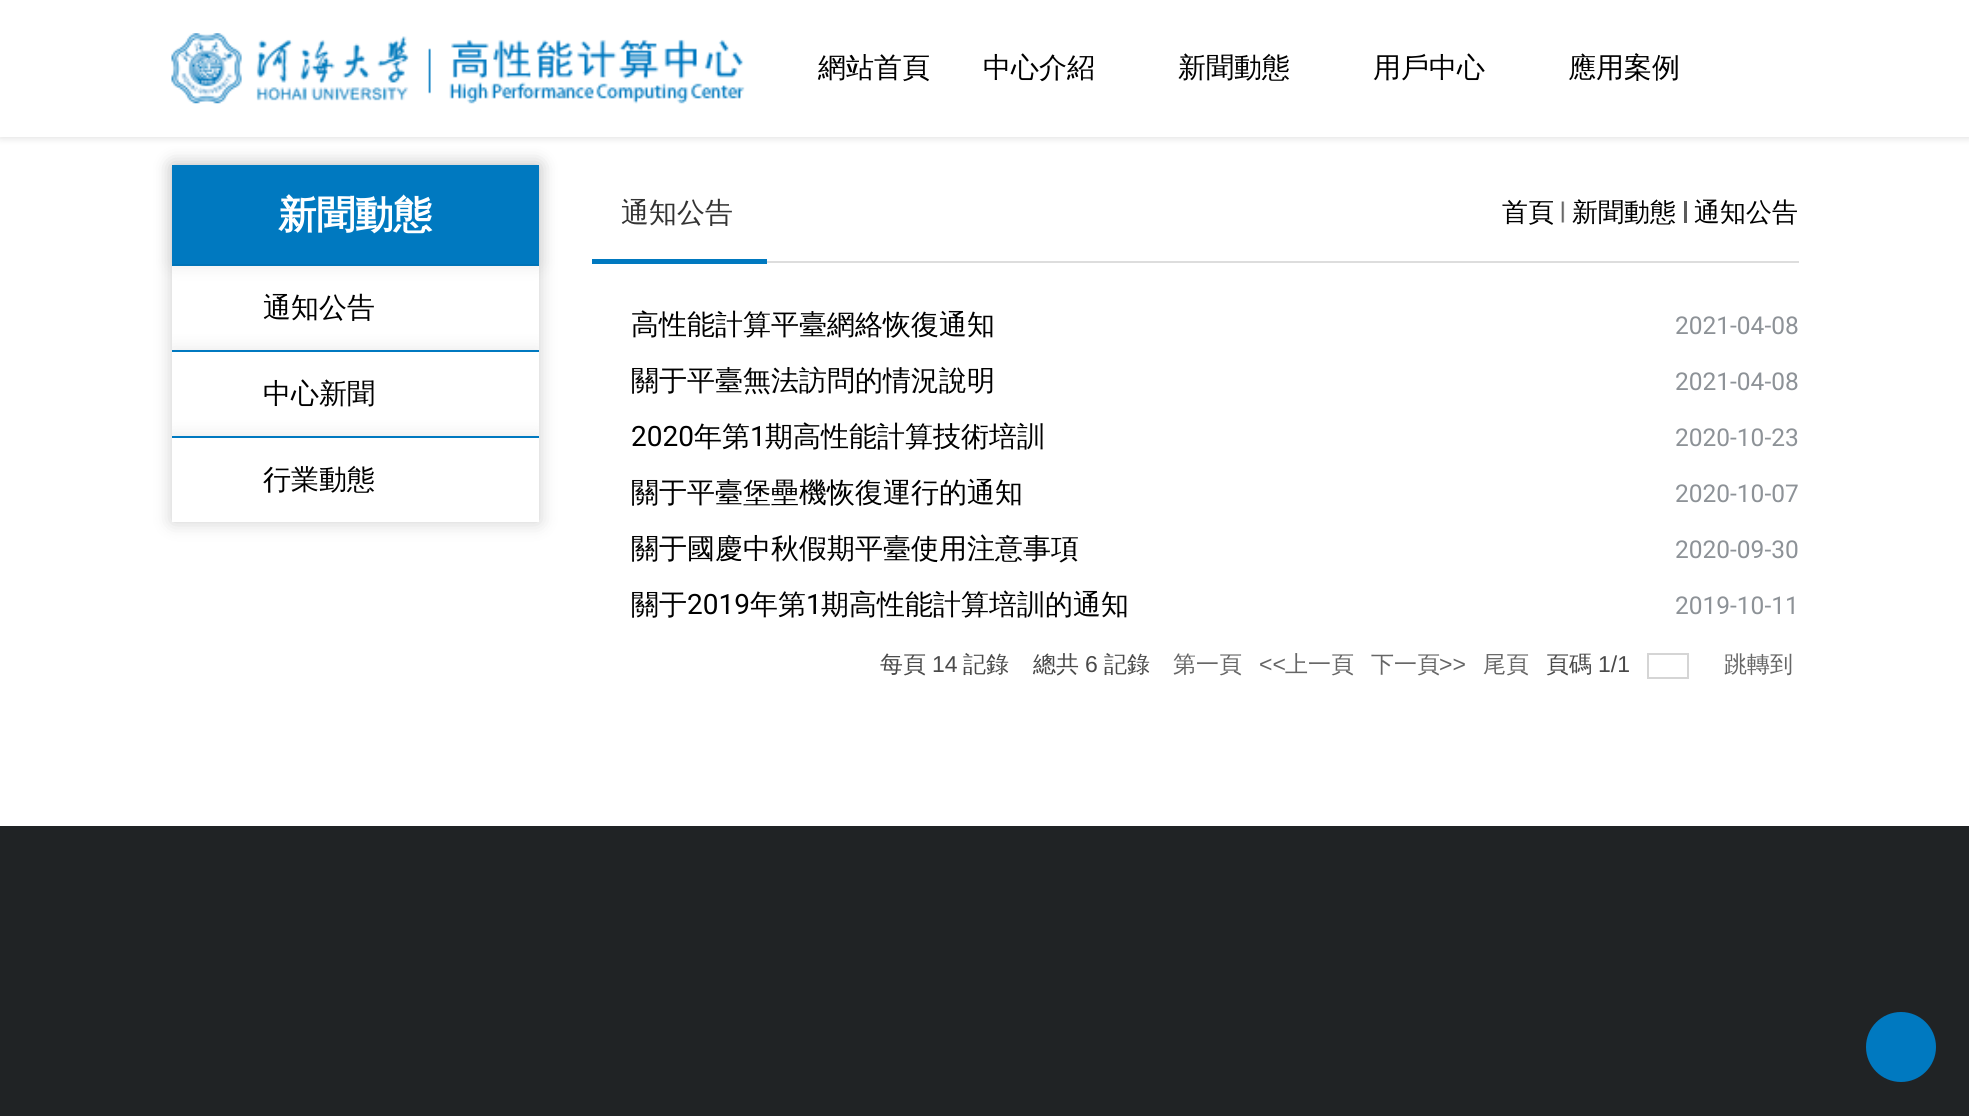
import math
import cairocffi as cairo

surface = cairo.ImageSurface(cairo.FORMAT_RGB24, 1969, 1116)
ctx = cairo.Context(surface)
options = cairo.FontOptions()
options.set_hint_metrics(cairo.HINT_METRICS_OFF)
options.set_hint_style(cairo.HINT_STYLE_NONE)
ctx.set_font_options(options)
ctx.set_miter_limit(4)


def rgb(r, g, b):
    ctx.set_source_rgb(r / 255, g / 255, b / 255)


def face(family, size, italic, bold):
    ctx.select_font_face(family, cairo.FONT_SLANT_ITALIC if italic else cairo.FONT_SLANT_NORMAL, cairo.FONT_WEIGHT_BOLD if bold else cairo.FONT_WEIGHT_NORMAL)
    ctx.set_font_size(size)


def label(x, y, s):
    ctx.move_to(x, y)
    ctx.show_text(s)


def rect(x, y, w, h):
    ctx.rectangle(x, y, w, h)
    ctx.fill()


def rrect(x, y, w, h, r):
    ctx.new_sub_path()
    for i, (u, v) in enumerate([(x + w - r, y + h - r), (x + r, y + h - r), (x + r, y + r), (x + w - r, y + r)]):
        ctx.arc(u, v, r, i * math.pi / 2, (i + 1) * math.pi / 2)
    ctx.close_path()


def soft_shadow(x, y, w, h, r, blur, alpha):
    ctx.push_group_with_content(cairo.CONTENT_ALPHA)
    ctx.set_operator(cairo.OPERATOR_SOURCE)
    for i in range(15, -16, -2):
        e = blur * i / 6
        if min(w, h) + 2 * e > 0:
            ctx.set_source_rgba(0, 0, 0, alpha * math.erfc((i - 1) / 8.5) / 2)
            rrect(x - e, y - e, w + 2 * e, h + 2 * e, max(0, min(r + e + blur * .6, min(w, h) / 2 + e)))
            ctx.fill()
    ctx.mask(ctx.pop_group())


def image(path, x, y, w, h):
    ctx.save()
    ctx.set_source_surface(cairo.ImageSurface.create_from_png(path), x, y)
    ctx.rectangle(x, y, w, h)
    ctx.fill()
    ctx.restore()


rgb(255, 255, 255)
ctx.paint()
rgb(0, 0, 0)
soft_shadow(0, 0, 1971, 137, 0, 4.5, 0.15)
rgb(255, 255, 255)
rect(0, 0, 1969, 137)
image('image0.png', 171, 33, 574, 71)
face('WenQuanYi Zen Hei Medium', 28, 0, 0)
rgb(0, 0, 0)
label(818, 77, '網站首頁')
label(983, 77, '中心介紹')
label(1178, 77, '新聞動態')
label(1373, 77, '用戶中心')
label(1568, 77, '應用案例')
rgb(0, 0, 0)
soft_shadow(172, 165, 367, 357, 0, 9, 0.2)
rgb(255, 255, 255)
rect(172, 266, 367, 84)
rgb(0, 121, 192)
rect(172, 264, 367, 2)
rgb(0, 0, 0)
soft_shadow(172, 165, 367, 99, 0, 9, 0.1)
rgb(0, 121, 192)
rect(172, 165, 367, 99)
face('WenQuanYi Zen Hei', 38.5, 0, 1)
rgb(255, 255, 255)
label(278, 228, '新聞動態')
face('WenQuanYi Zen Hei Medium', 28, 0, 0)
rgb(0, 0, 0)
label(263, 317, '通知公告')
ctx.save()
ctx.rectangle(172, 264, 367, 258)
ctx.clip()
rgb(0, 0, 0)
soft_shadow(172, 350, 367, 86, 0, 9, 0.1)
ctx.restore()
rgb(255, 255, 255)
rect(172, 352, 367, 84)
rgb(0, 121, 192)
rect(172, 350, 367, 2)
rgb(0, 0, 0)
label(263, 403, '中心新聞')
ctx.save()
ctx.rectangle(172, 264, 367, 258)
ctx.clip()
rgb(0, 0, 0)
soft_shadow(172, 436, 367, 86, 0, 9, 0.1)
ctx.restore()
rgb(255, 255, 255)
rect(172, 438, 367, 84)
rgb(0, 121, 192)
rect(172, 436, 367, 2)
rgb(0, 0, 0)
label(263, 489, '行業動態')
rgb(221, 221, 221)
rect(767, 261, 1032, 2)
rgb(51, 51, 51)
label(621, 222, '通知公告')
face('WenQuanYi Zen Hei Medium', 26, 0, 0)
rgb(0, 0, 0)
label(1502, 221, '首頁')
image('image1.png', 1561, 201, 4, 22)
label(1572, 221, '新聞動態')
rgb(91, 91, 91)
rect(1684, 201, 3, 22)
rgb(0, 0, 0)
label(1694, 221, '通知公告')
rgb(0, 121, 192)
rect(592, 259, 175, 5)
face('WenQuanYi Zen Hei Medium', 28, 0, 0)
rgb(0, 0, 0)
label(631, 334, '高性能計算平臺網絡恢復通知')
face('Roboto', 24.5, 0, 0)
rgb(141, 146, 151)
label(1675, 334, '2021-04-08')
face('WenQuanYi Zen Hei Medium', 28, 0, 0)
rgb(0, 0, 0)
label(631, 390, '關于平臺無法訪問的情況說明')
face('Roboto', 24.5, 0, 0)
rgb(141, 146, 151)
label(1675, 390, '2021-04-08')
face('Roboto', 28, 0, 0)
rgb(0, 0, 0)
label(631, 446, '2020')
face('WenQuanYi Zen Hei Medium', 28, 0, 0)
label(694, 446, '年第')
face('Roboto', 28, 0, 0)
label(750, 446, '1')
face('WenQuanYi Zen Hei Medium', 28, 0, 0)
label(765, 446, '期高性能計算技術培訓')
face('Roboto', 24.5, 0, 0)
rgb(141, 146, 151)
label(1675, 446, '2020-10-23')
face('WenQuanYi Zen Hei Medium', 28, 0, 0)
rgb(0, 0, 0)
label(631, 502, '關于平臺堡壘機恢復運行的通知')
face('Roboto', 24.5, 0, 0)
rgb(141, 146, 151)
label(1675, 502, '2020-10-07')
face('WenQuanYi Zen Hei Medium', 28, 0, 0)
rgb(0, 0, 0)
label(631, 558, '關于國慶中秋假期平臺使用注意事項')
face('Roboto', 24.5, 0, 0)
rgb(141, 146, 151)
label(1675, 558, '2020-09-30')
face('WenQuanYi Zen Hei Medium', 28, 0, 0)
rgb(0, 0, 0)
label(631, 614, '關于')
face('Roboto', 28, 0, 0)
label(687, 614, '2019')
face('WenQuanYi Zen Hei Medium', 28, 0, 0)
label(750, 614, '年第')
face('Roboto', 28, 0, 0)
label(806, 614, '1')
face('WenQuanYi Zen Hei Medium', 28, 0, 0)
label(821, 614, '期高性能計算培訓的通知')
face('Roboto', 24.5, 0, 0)
rgb(141, 146, 151)
label(1675, 614, '2019-10-11')
face('WenQuanYi Zen Hei Medium', 23, 0, 0)
rgb(73, 73, 73)
label(880, 672, '每頁')
face('Liberation Sans', 23, 0, 0)
label(932, 672, '14')
face('WenQuanYi Zen Hei Medium', 23, 0, 0)
label(963, 672, '記錄')
label(1033, 672, '總共')
face('Liberation Sans', 23, 0, 0)
label(1085, 672, '6')
face('WenQuanYi Zen Hei Medium', 23, 0, 0)
label(1104, 672, '記錄')
rgb(102, 102, 102)
label(1173, 672, '第一頁')
face('Liberation Sans', 23, 0, 0)
label(1259, 672, '<<')
face('WenQuanYi Zen Hei Medium', 23, 0, 0)
label(1285, 672, '上一頁')
label(1371, 672, '下一頁')
face('Liberation Sans', 23, 0, 0)
label(1439, 672, '>>')
face('WenQuanYi Zen Hei Medium', 23, 0, 0)
label(1483, 672, '尾頁')
rgb(73, 73, 73)
label(1546, 672, '頁碼')
face('Liberation Sans', 23, 0, 0)
label(1598, 672, '1/1')
ctx.rectangle(1648, 654, 40, 24)
rgb(213, 213, 213)
ctx.stroke()
face('WenQuanYi Zen Hei Medium', 23, 0, 0)
rgb(102, 102, 102)
label(1724, 672, '跳轉到')
rgb(32, 35, 37)
rect(0, 826, 1969, 290)
rgb(0, 121, 192)
ctx.new_path()
ctx.arc(1901, 1047, 35, 0, 2 * math.pi)
ctx.fill()
surface.write_to_png('render.png')
